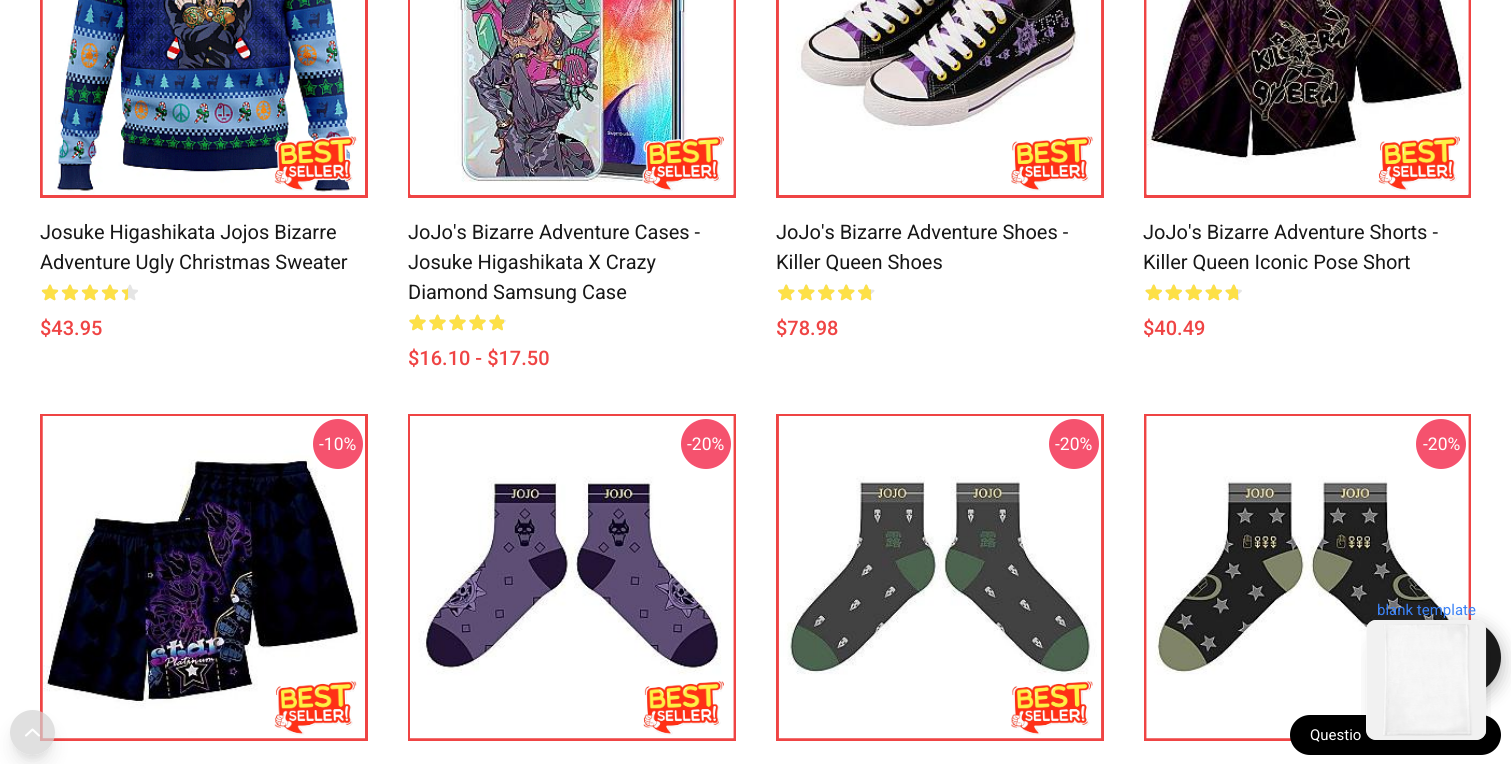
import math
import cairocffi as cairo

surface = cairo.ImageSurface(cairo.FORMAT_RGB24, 1511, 764)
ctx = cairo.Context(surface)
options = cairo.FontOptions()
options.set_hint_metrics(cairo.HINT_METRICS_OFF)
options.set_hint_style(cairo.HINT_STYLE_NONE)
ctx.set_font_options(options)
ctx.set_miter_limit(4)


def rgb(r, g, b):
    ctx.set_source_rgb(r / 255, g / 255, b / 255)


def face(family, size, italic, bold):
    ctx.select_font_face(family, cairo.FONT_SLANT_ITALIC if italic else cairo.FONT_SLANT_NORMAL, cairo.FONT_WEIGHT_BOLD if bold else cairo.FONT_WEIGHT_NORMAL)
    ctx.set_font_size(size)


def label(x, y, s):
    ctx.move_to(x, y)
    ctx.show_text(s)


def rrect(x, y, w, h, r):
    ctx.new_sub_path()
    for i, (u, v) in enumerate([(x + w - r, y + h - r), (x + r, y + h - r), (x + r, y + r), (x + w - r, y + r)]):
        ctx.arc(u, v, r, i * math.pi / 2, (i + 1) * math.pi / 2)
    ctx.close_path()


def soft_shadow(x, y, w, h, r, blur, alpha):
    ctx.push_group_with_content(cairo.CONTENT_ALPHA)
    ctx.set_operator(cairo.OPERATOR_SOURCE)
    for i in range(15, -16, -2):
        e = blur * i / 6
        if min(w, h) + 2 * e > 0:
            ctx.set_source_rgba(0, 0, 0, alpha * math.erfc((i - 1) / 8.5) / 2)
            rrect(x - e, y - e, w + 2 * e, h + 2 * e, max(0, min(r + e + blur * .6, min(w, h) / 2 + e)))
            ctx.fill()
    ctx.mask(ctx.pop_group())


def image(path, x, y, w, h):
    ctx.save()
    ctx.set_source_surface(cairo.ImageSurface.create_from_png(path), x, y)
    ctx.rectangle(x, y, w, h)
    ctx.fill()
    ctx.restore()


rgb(255, 255, 255)
ctx.paint()
ctx.rectangle(41.5, -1.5, 325, 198)
rgb(239, 68, 68)
ctx.set_line_width(3)
ctx.stroke()
image('image0.png', 42, 0, 310, 195)
image('image1.png', 274, 136, 84, 55)
face('Roboto', 20, 0, 0)
rgb(23, 23, 23)
label(40, 239, 'Josuke Higashikata Jojos Bizarre')
label(40, 269, 'Adventure Ugly Christmas Sweater')
image('image4.png', 42, 284, 16, 17)
image('image2.png', 41, 284, 18, 17)
image('image4.png', 62, 284, 16, 17)
image('image2.png', 61, 284, 18, 17)
image('image4.png', 82, 284, 16, 17)
image('image2.png', 81, 284, 18, 17)
image('image4.png', 102, 284, 16, 17)
image('image2.png', 101, 284, 18, 17)
image('image4.png', 122, 284, 16, 17)
image('image3.png', 121, 287, 7, 14)
face('Roboto Medium', 20, 0, 0)
rgb(239, 68, 68)
label(40, 335, '$43.95')
ctx.rectangle(409.5, -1.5, 325, 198)
ctx.stroke()
image('image5.png', 410, 0, 324, 195)
image('image6.png', 642, 136, 82, 55)
face('Roboto', 20, 0, 0)
rgb(23, 23, 23)
label(408, 239, 'JoJo\'s Bizarre Adventure Cases -')
label(408, 269, 'Josuke Higashikata X Crazy')
label(408, 299, 'Diamond Samsung Case')
image('image7.png', 409, 314, 17, 17)
image('image7.png', 429, 314, 17, 17)
image('image7.png', 449, 314, 17, 17)
image('image7.png', 469, 314, 17, 17)
image('image7.png', 489, 314, 17, 17)
image('image8.png', 409, 314, 17, 17)
image('image8.png', 429, 314, 17, 17)
image('image8.png', 449, 314, 17, 17)
image('image8.png', 469, 314, 17, 17)
image('image9.png', 489, 314, 15, 17)
face('Roboto Medium', 20, 0, 0)
rgb(239, 68, 68)
label(408, 365, '$16.10 - $17.50')
ctx.rectangle(777.5, -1.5, 325, 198)
ctx.stroke()
image('image10.png', 778, 0, 324, 195)
image('image11.png', 1011, 136, 83, 55)
face('Roboto', 20, 0, 0)
rgb(23, 23, 23)
label(776, 239, 'JoJo\'s Bizarre Adventure Shoes -')
label(776, 269, 'Killer Queen Shoes')
image('image12.png', 778, 284, 17, 17)
image('image12.png', 798, 284, 17, 17)
image('image12.png', 818, 284, 17, 17)
image('image12.png', 838, 284, 17, 17)
image('image12.png', 858, 284, 17, 17)
image('image13.png', 778, 284, 17, 17)
image('image13.png', 798, 284, 17, 17)
image('image13.png', 818, 284, 17, 17)
image('image13.png', 838, 284, 17, 17)
image('image14.png', 858, 284, 13, 17)
face('Roboto Medium', 20, 0, 0)
rgb(239, 68, 68)
label(776, 335, '$78.98')
ctx.rectangle(1145.5, -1.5, 324, 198)
ctx.stroke()
image('image15.png', 1146, 0, 323, 195)
image('image16.png', 1378, 136, 82, 55)
face('Roboto', 20, 0, 0)
rgb(23, 23, 23)
label(1143, 239, 'JoJo\'s Bizarre Adventure Shorts -')
label(1143, 269, 'Killer Queen Iconic Pose Short')
image('image17.png', 1145, 284, 17, 17)
image('image17.png', 1165, 284, 17, 17)
image('image17.png', 1185, 284, 17, 17)
image('image17.png', 1205, 284, 17, 17)
image('image17.png', 1225, 284, 17, 17)
image('image18.png', 1145, 284, 17, 17)
image('image18.png', 1165, 284, 17, 17)
image('image18.png', 1185, 284, 17, 17)
image('image18.png', 1205, 284, 17, 17)
image('image19.png', 1225, 284, 13, 17)
face('Roboto Medium', 20, 0, 0)
rgb(239, 68, 68)
label(1143, 335, '$40.49')
ctx.rectangle(41.5, 415.5, 325, 324)
ctx.stroke()
image('image20.png', 42, 416, 323, 323)
image('image21.png', 274, 680, 83, 55)
rgb(245, 82, 110)
ctx.arc(338, 444, 25, 0, 2 * math.pi)
ctx.fill()
face('Roboto', 17.5, 0, 0)
rgb(255, 255, 255)
label(319, 450, '-10%')
ctx.rectangle(409.5, 415.5, 325, 324)
rgb(239, 68, 68)
ctx.stroke()
image('image22.png', 410, 416, 324, 323)
image('image23.png', 643, 680, 81, 55)
rgb(245, 82, 110)
ctx.arc(706, 444, 25, 0, 2 * math.pi)
ctx.fill()
rgb(255, 255, 255)
label(687, 450, '-20%')
ctx.rectangle(777.5, 415.5, 325, 324)
rgb(239, 68, 68)
ctx.stroke()
image('image24.png', 778, 416, 324, 323)
image('image25.png', 1011, 680, 82, 55)
rgb(245, 82, 110)
ctx.arc(1074, 444, 25, 0, 2 * math.pi)
ctx.fill()
rgb(255, 255, 255)
label(1055, 450, '-20%')
ctx.rectangle(1145.5, 415.5, 324, 324)
rgb(239, 68, 68)
ctx.stroke()
image('image26.png', 1146, 416, 323, 323)
rgb(245, 82, 110)
ctx.arc(1441, 444, 25, 0, 2 * math.pi)
ctx.fill()
rgb(255, 255, 255)
label(1423, 450, '-20%')
rgb(0, 0, 0)
rrect(1290, 715, 211, 40, 20)
ctx.fill()
rgb(0, 0, 0)
soft_shadow(1426, 625, 75, 75, 37.5, 9.5, 0.3)
rgb(26, 26, 26)
ctx.arc(1463.5, 657.5, 37.5, 0, 2 * math.pi)
ctx.fill()
ctx.save()
ctx.rectangle(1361, 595, 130, 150)
ctx.clip()
rgb(0, 0, 0)
soft_shadow(1374, 638, 105, 105, 2.5, 6, 0.1)
soft_shadow(1373, 651, 107, 108, 4, 15.5, 0.1)
ctx.restore()
rgb(255, 255, 255)
rrect(1366, 620, 120, 120, 10)
ctx.fill()
image('image27.png', 1366, 620, 121, 120)
face('Roboto', 15, 0, 0)
rgb(59, 130, 246)
label(1377, 615, 'blank template')
ctx.save()
ctx.set_fill_rule(cairo.FILL_RULE_EVEN_ODD)
ctx.new_path()
ctx.move_to(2, 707)
ctx.line_to(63, 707)
ctx.line_to(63, 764)
ctx.line_to(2, 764)
ctx.close_path()
ctx.move_to(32.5, 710)
ctx.curve_to(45, 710, 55, 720, 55, 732.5)
ctx.curve_to(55, 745, 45, 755, 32.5, 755)
ctx.curve_to(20, 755, 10, 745, 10, 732.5)
ctx.curve_to(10, 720, 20, 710, 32.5, 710)
ctx.close_path()
ctx.clip()
rgb(0, 0, 0)
soft_shadow(15, 720, 35, 35, 17.5, 4, 0.1)
ctx.restore()
ctx.save()
ctx.set_fill_rule(cairo.FILL_RULE_EVEN_ODD)
ctx.new_path()
ctx.move_to(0, 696)
ctx.line_to(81, 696)
ctx.line_to(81, 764)
ctx.line_to(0, 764)
ctx.close_path()
ctx.move_to(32.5, 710)
ctx.curve_to(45, 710, 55, 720, 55, 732.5)
ctx.curve_to(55, 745, 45, 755, 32.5, 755)
ctx.curve_to(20, 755, 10, 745, 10, 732.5)
ctx.curve_to(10, 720, 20, 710, 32.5, 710)
ctx.close_path()
ctx.clip()
rgb(0, 0, 0)
soft_shadow(14, 726, 37, 38, 18.5, 9.5, 0.1)
ctx.restore()
ctx.set_source_rgba(0.831, 0.831, 0.831, 0.7)
ctx.arc(32.5, 732.5, 22.5, 0, 2 * math.pi)
ctx.fill()
ctx.new_path()
ctx.move_to(39, 735.5)
ctx.line_to(32.5, 729.5)
ctx.line_to(26, 735.5)
rgb(255, 255, 255)
ctx.set_line_width(2.1)
ctx.set_line_cap(cairo.LINE_CAP_ROUND)
ctx.set_line_join(cairo.LINE_JOIN_ROUND)
ctx.stroke()
label(1310, 740, 'Questio')
surface.write_to_png('render.png')
